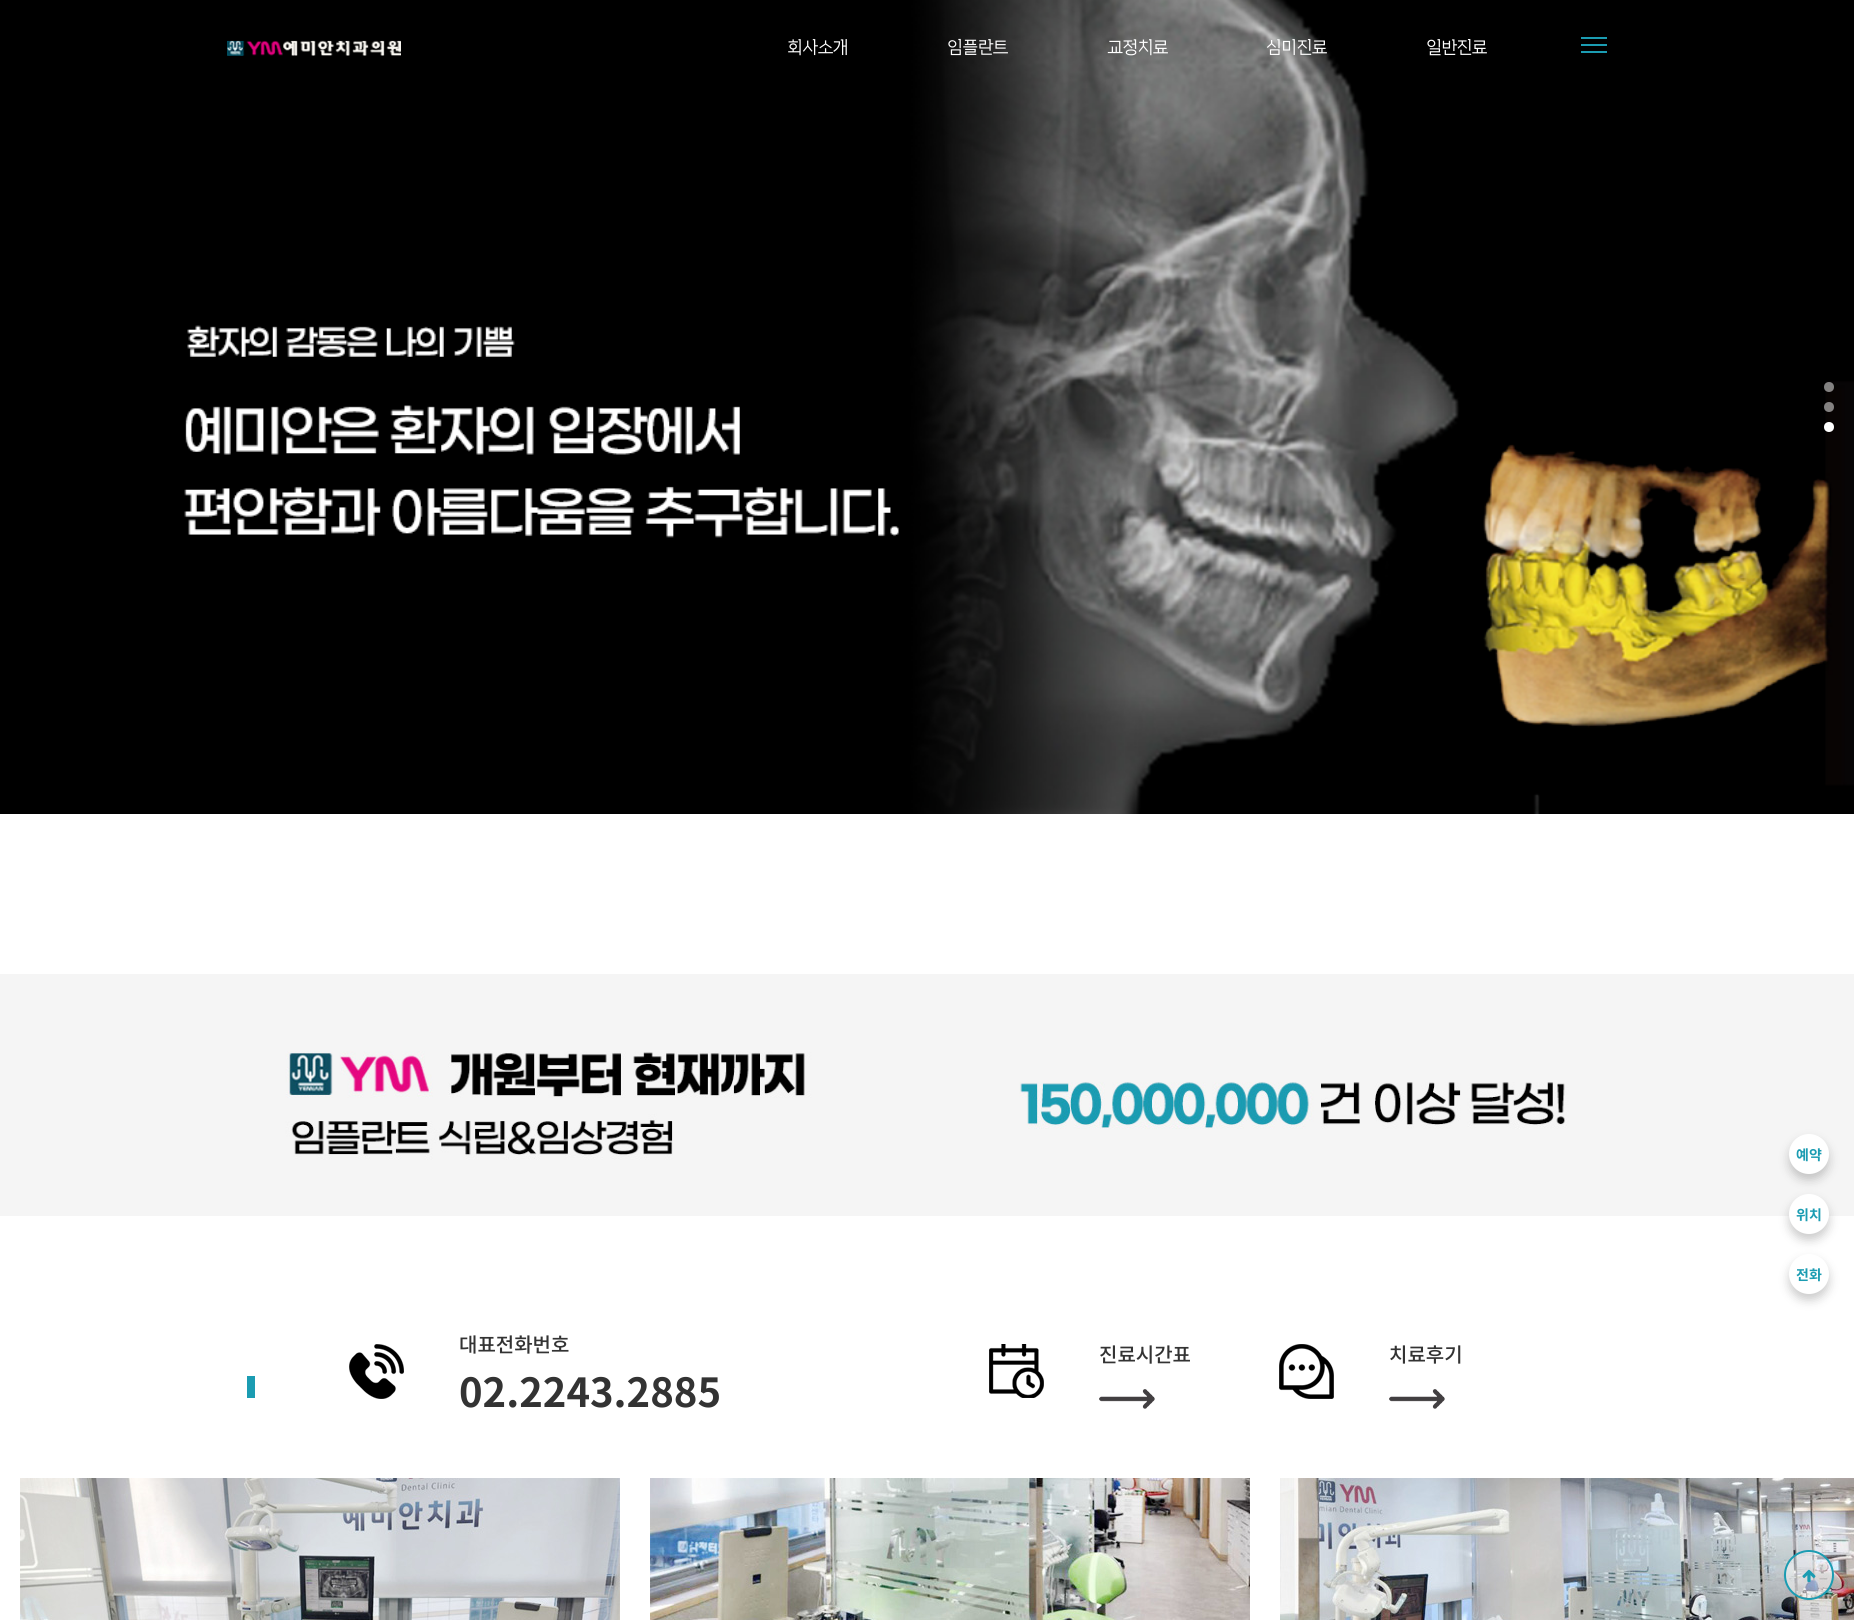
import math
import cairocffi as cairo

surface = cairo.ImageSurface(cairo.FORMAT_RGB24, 1854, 1620)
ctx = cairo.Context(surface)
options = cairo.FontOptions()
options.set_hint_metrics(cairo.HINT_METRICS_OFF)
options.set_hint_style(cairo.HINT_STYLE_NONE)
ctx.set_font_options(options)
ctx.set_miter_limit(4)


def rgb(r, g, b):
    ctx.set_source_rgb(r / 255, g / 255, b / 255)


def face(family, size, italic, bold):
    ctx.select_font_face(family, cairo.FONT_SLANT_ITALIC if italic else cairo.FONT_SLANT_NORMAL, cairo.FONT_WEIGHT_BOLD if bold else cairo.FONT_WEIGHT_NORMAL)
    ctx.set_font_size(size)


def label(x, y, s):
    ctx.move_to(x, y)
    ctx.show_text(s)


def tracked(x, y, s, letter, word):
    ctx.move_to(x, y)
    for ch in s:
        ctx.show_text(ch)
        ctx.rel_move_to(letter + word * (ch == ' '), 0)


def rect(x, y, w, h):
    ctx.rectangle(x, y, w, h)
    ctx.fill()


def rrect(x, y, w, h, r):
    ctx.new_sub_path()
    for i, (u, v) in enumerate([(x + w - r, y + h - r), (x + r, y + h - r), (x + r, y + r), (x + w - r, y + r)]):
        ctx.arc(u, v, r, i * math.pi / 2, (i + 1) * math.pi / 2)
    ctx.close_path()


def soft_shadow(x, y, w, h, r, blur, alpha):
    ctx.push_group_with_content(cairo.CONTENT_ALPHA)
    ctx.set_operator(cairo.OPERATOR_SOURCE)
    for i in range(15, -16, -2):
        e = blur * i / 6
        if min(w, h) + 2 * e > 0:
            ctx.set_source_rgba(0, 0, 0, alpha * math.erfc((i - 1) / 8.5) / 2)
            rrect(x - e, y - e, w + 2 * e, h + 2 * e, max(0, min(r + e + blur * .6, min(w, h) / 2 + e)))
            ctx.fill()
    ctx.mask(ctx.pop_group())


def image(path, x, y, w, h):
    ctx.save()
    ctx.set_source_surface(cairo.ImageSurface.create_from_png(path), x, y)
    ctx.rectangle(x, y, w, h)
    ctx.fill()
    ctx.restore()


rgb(255, 255, 255)
ctx.paint()
image('image1.png', 0, 0, 1854, 814)
image('image0.png', 227, 40, 174, 16)
face('Orbit', 18, 0, 0)
rgb(255, 255, 255)
tracked(787, 53, '회사소개', -1, 0)
tracked(947, 53, '임플란트', -1, 0)
tracked(1107, 53, '교정치료', -1, 0)
tracked(1266, 53, '심미진료', -1, 0)
tracked(1426, 53, '일반진료', -1, 0)
rgb(27, 156, 178)
rect(1581, 37, 26, 2)
rect(1581, 44, 26, 2)
rect(1581, 51, 26, 2)
ctx.set_source_rgba(1, 1, 1, 0.5)
ctx.new_path()
ctx.arc(1829, 387, 5, 0, 2 * math.pi)
ctx.fill()
ctx.arc(1829, 407, 5, 0, 2 * math.pi)
ctx.fill()
rgb(255, 255, 255)
ctx.arc(1829, 427, 5, 0, 2 * math.pi)
ctx.fill()
image('image2.png', 0, 974, 1854, 242)
rgb(0, 0, 0)
soft_shadow(1789, 1140, 40, 40, 20, 5, 0.2)
rgb(255, 255, 255)
ctx.arc(1809, 1154, 20, 0, 2 * math.pi)
ctx.fill()
face('Noto Sans KR', 14, 0, 1)
rgb(27, 156, 178)
label(1796, 1160, '예약')
rgb(0, 0, 0)
soft_shadow(1789, 1200, 40, 40, 20, 5, 0.2)
rgb(255, 255, 255)
ctx.arc(1809, 1214, 20, 0, 2 * math.pi)
ctx.fill()
rgb(27, 156, 178)
label(1796, 1220, '위치')
rgb(0, 0, 0)
soft_shadow(1789, 1260, 40, 40, 20, 5, 0.2)
rgb(255, 255, 255)
ctx.arc(1809, 1274, 20, 0, 2 * math.pi)
ctx.fill()
rgb(27, 156, 178)
label(1796, 1280, '전화')
image('image3.png', 349, 1344, 55, 55)
face('Noto Sans KR Medium', 20, 0, 0)
rgb(51, 51, 51)
label(459, 1352, '대표전화번호')
face('Noto Sans KR', 40, 0, 1)
label(459, 1407, '02.2243.2885')
image('image4.png', 989, 1344, 55, 54)
face('Noto Sans KR Medium', 20, 0, 0)
label(1099, 1362, '진료시간표')
image('image5.png', 1099, 1389, 56, 20)
image('image6.png', 1279, 1344, 55, 55)
label(1389, 1362, '치료후기')
image('image5.png', 1389, 1389, 56, 20)
rgb(27, 156, 178)
rect(247, 1376, 8, 22)
image('image7.png', 20, 1478, 600, 142)
image('image8.png', 650, 1478, 600, 142)
image('image9.png', 1280, 1478, 574, 142)
ctx.set_source_rgba(1, 1, 1, 0.5)
ctx.arc(1809, 1575, 24, 0, 2 * math.pi)
ctx.fill_preserve()
rgb(27, 156, 178)
ctx.stroke()
image('image10.png', 1802, 1569, 14, 14)
surface.write_to_png('render.png')
